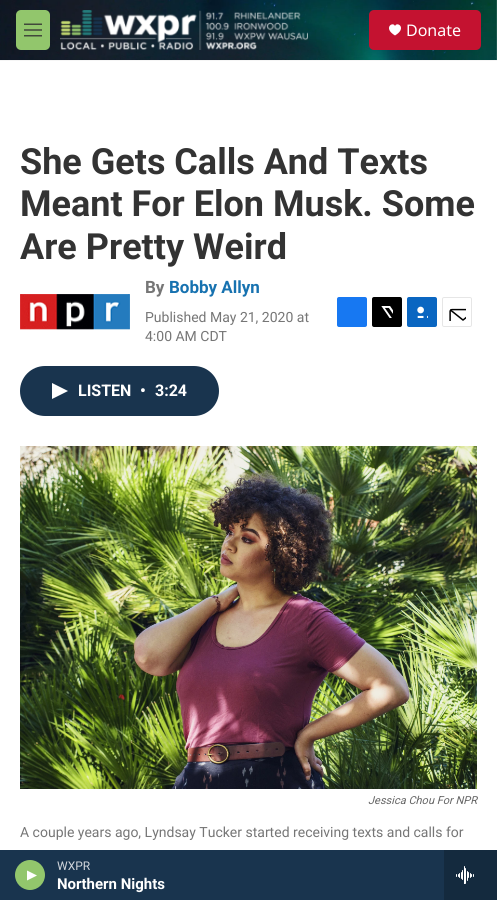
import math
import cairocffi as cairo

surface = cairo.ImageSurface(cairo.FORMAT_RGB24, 497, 900)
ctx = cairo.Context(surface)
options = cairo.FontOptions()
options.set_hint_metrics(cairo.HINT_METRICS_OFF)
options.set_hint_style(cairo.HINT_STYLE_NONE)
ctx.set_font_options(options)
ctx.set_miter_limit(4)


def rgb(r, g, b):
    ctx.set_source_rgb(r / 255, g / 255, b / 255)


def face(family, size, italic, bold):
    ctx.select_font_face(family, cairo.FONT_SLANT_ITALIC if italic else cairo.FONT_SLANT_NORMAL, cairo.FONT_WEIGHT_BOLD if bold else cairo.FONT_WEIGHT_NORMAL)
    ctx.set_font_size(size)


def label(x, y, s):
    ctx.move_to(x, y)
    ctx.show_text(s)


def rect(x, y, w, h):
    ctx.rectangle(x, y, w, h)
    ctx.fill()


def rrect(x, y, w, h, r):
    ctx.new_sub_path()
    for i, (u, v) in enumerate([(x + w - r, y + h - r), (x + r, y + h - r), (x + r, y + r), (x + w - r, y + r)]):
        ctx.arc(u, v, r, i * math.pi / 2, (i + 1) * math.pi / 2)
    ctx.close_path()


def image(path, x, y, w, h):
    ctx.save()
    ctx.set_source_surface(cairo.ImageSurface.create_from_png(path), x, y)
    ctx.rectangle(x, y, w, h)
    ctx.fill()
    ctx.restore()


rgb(255, 255, 255)
ctx.paint()
rgb(245, 245, 245)
rect(0, 60, 497, 1)
image('image0.png', 0, 0, 497, 60)
rgb(146, 198, 108)
rrect(16, 10, 34, 40, 5)
ctx.fill()
image('image1.png', 24, 23, 18, 14)
image('image2.png', 60, 10, 248, 40)
rgb(196, 18, 48)
rrect(369, 10, 112, 40, 5)
ctx.fill()
rgb(255, 255, 255)
ctx.new_path()
ctx.move_to(395, 26)
ctx.curve_to(393, 21, 382.5, 28, 395, 35.5)
ctx.curve_to(407.5, 28, 397, 21, 395, 26)
ctx.close_path()
ctx.fill()
face('Noto Sans', 16, 0, 0)
label(406, 36, 'Donate')
rgb(25, 52, 78)
rect(0, 850, 444, 50)
rgb(146, 198, 108)
ctx.new_path()
ctx.arc(30, 875, 15, 0, 2 * math.pi)
ctx.fill()
rgb(255, 255, 255)
ctx.new_path()
ctx.move_to(27, 870.5)
ctx.line_to(37, 875.5)
ctx.line_to(27, 880.5)
ctx.close_path()
ctx.fill()
face('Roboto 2', 12, 0, 0)
rgb(209, 214, 220)
label(57, 870, 'WXPR')
face('Roboto 2', 15, 0, 1)
rgb(255, 255, 255)
label(57, 889, 'Northern Nights')
rgb(20, 42, 62)
rect(444, 850, 53, 50)
image('image3.png', 456, 866, 18, 18)
face('Roboto', 36, 0, 1)
rgb(51, 51, 51)
label(20, 174, 'She Gets Calls And Texts')
label(20, 216, 'Meant For Elon Musk. Some')
label(20, 259, 'Are Pretty Weird')
image('image4.png', 20, 294, 110, 36)
face('Roboto', 17, 0, 1)
rgb(118, 118, 118)
label(145, 293, 'By')
rgb(23, 114, 176)
label(169, 293, 'Bobby Allyn')
face('Roboto', 14, 0, 0)
rgb(118, 118, 118)
label(145, 322, 'Published May 21, 2020 at')
label(145, 341, '4:00 AM CDT')
rgb(23, 120, 242)
rrect(337, 297, 30, 30, 2)
ctx.fill()
rgb(0, 0, 0)
rrect(372, 297, 30, 30, 2)
ctx.fill()
image('image5.png', 381, 306, 12, 12)
rgb(10, 102, 193)
rrect(407, 297, 30, 30, 2)
ctx.fill()
image('image6.png', 417, 306, 11, 12)
rrect(442.5, 297.5, 29, 29, 1.5)
rgb(230, 230, 230)
ctx.set_line_width(1)
ctx.stroke()
image('image7.png', 449, 308, 17, 13)
rgb(25, 52, 78)
rrect(20, 366, 199, 50, 25)
ctx.fill()
rgb(255, 255, 255)
ctx.new_path()
ctx.move_to(52, 383)
ctx.line_to(68, 391)
ctx.line_to(52, 399)
ctx.close_path()
ctx.fill()
face('Roboto 2', 16, 0, 1)
label(78, 396, 'LISTEN')
label(140, 396, '•')
label(155, 396, '3:24')
image('image8.png', 20, 446, 457, 343)
face('Roboto', 11, 1, 0)
rgb(102, 102, 102)
label(368, 804, 'Jessica Chou For NPR')
face('Roboto', 14, 0, 0)
rgb(118, 118, 118)
label(20, 837, 'A couple years ago, Lyndsay Tucker started receiving texts and calls for')
surface.write_to_png('render.png')
